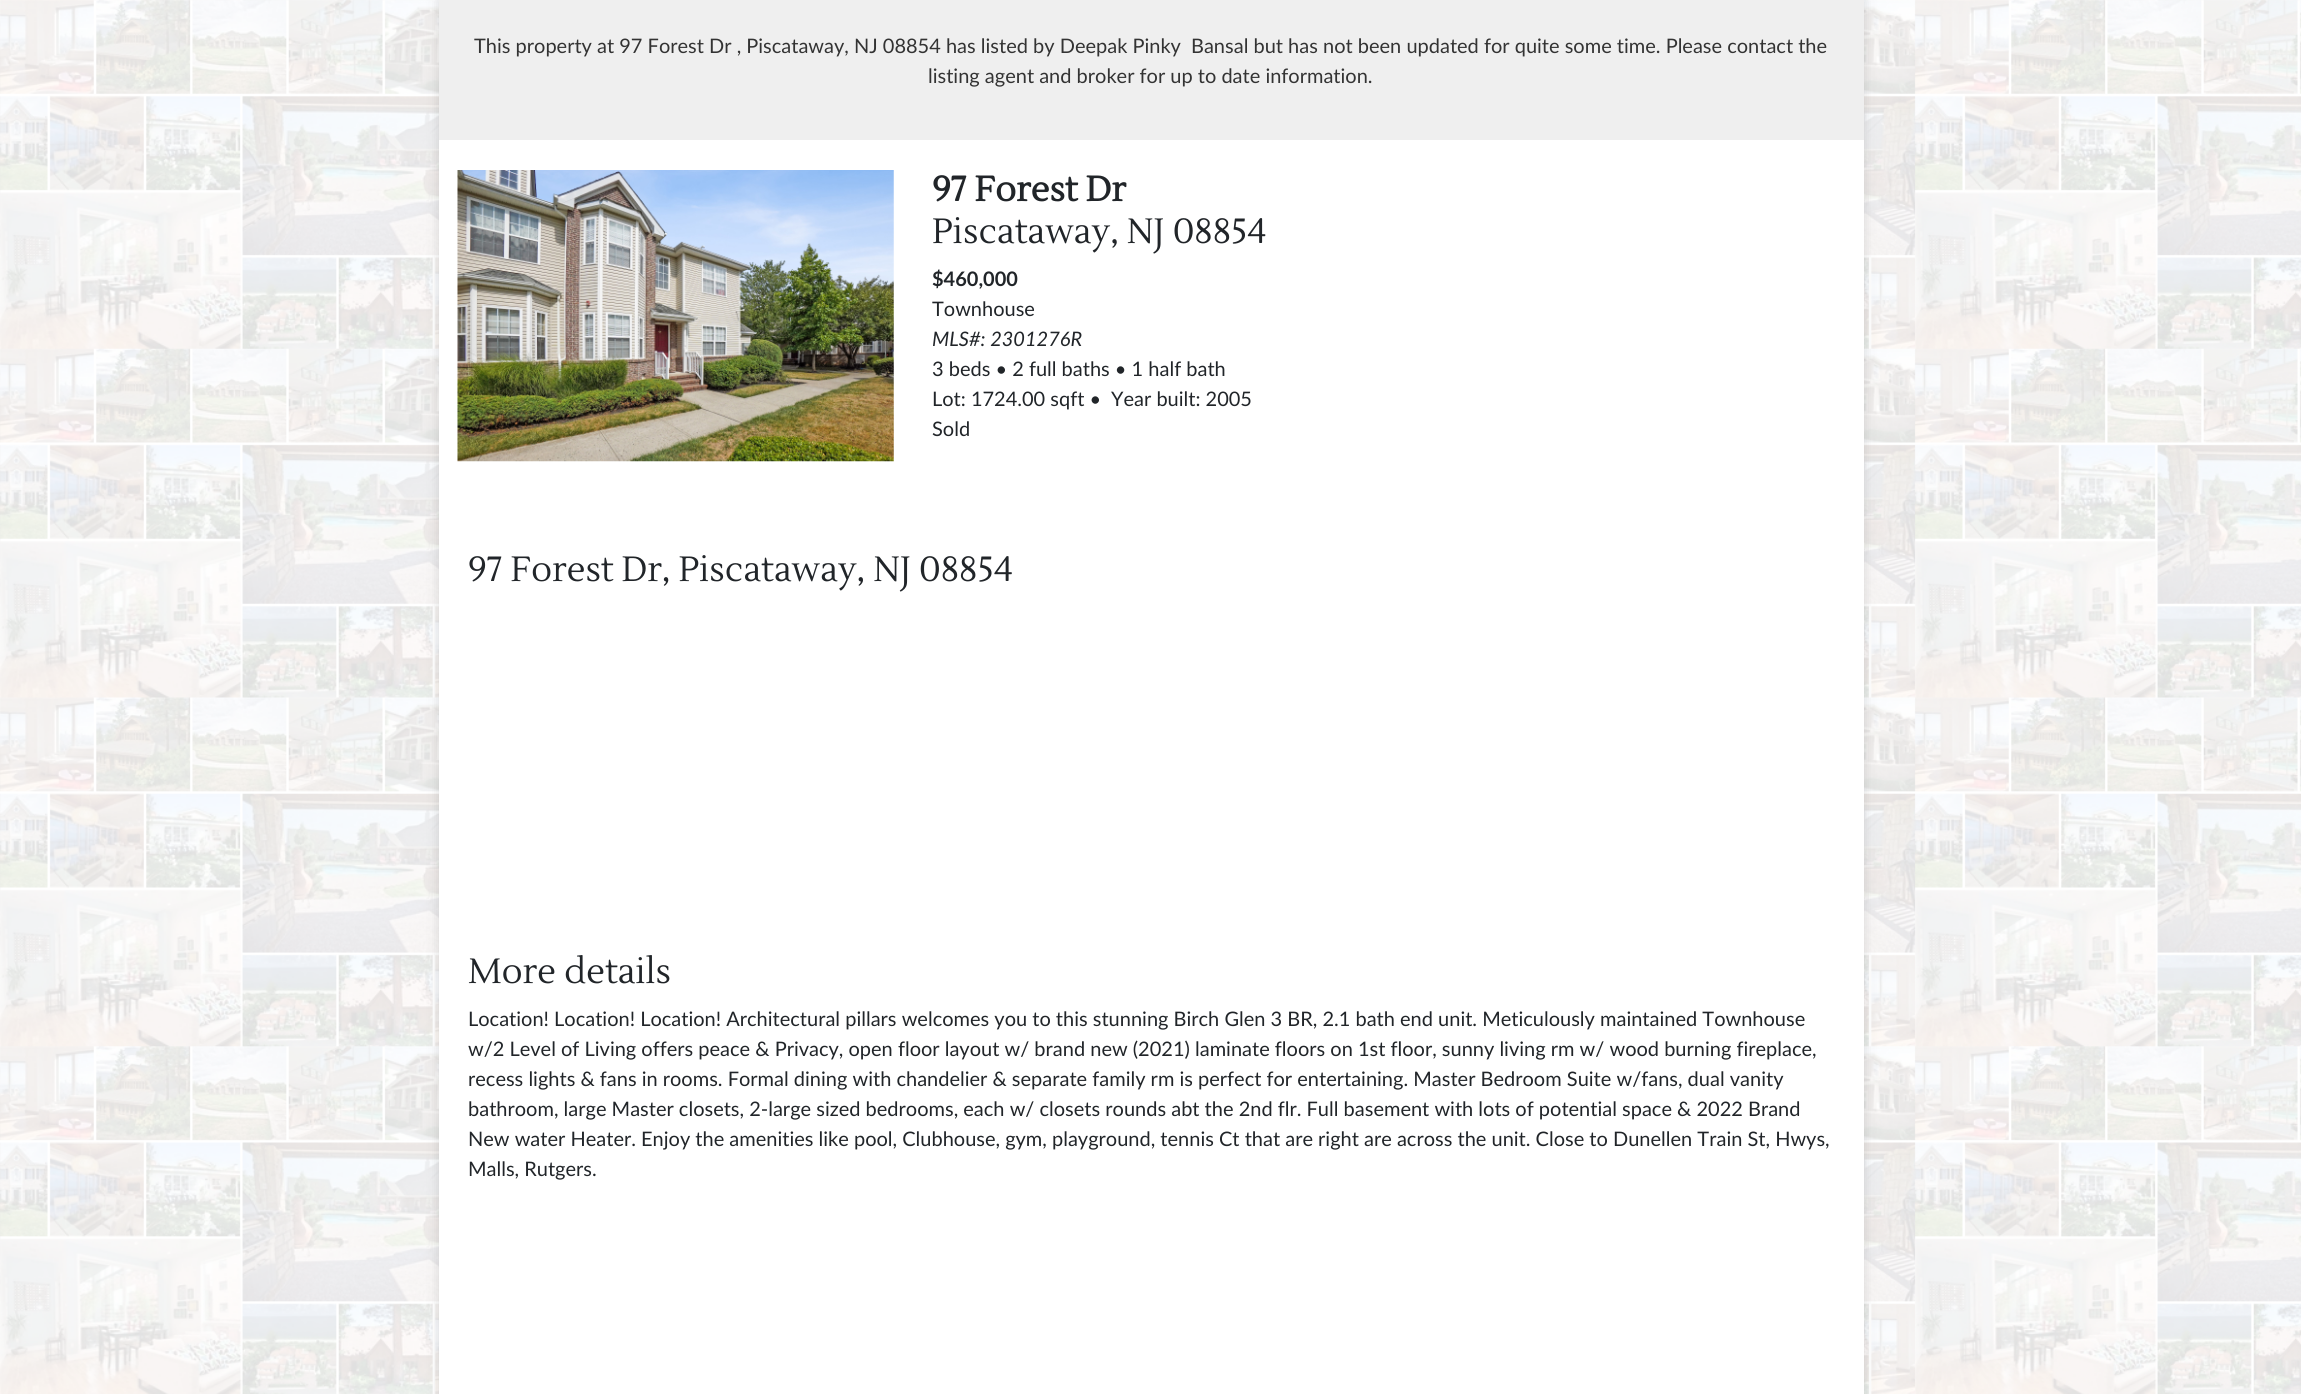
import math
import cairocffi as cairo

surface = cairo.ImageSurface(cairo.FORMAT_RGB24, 2301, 1394)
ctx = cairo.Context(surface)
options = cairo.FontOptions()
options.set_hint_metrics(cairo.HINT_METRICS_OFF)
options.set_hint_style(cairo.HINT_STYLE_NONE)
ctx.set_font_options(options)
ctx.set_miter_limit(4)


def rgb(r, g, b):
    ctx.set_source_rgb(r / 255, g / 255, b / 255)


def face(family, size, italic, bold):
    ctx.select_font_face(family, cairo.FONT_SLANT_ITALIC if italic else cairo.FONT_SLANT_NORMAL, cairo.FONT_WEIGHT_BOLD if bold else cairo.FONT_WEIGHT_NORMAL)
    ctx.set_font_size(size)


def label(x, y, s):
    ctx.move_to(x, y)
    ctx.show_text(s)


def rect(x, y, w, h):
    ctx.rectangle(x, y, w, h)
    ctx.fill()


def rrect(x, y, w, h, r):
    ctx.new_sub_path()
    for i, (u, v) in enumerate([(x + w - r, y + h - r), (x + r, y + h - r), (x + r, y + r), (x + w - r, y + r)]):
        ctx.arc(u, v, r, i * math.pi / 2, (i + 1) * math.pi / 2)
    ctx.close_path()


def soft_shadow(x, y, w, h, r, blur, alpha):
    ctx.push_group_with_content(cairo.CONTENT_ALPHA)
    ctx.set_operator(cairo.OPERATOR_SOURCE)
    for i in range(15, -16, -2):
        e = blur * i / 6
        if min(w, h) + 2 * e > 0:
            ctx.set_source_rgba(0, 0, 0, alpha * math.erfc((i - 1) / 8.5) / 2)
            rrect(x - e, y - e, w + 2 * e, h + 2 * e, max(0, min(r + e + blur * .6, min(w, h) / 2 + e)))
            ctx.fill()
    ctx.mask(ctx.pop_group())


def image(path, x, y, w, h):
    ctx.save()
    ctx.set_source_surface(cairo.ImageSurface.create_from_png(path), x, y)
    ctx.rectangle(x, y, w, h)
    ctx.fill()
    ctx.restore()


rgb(255, 255, 255)
ctx.paint()
image('image0.png', 0, 0, 2301, 1394)
rgb(50, 50, 50)
soft_shadow(439, 0, 1425, 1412, 0, 6, 0.17)
rgb(255, 255, 255)
rect(439, 140, 1425, 1254)
rgb(239, 239, 239)
rect(439, 0, 1425, 140)
face('Lato', 20, 0, 0)
rgb(51, 51, 51)
label(474, 53, 'This property at 97 Forest Dr , Piscataway, NJ 08854 has listed by Deepak Pinky')
label(1191, 53, 'Bansal but has not been updated for quite some time. Please contact the')
label(928, 83, 'listing agent and broker for up to date information.')
image('image1.png', 457, 170, 437, 292)
face('Lustria', 35, 0, 1)
rgb(33, 37, 41)
label(932, 201, '97 Forest Dr')
face('Lustria', 35, 0, 0)
label(932, 243, 'Piscataway, NJ 08854')
face('Lato', 20, 0, 1)
label(932, 286, '$460,000')
face('Lato', 20, 0, 0)
label(932, 316, 'Townhouse')
face('Lato', 20, 1, 0)
label(932, 346, 'MLS#: 2301276R')
face('Lato', 20, 0, 0)
label(932, 376, '3 beds • 2 full baths • 1 half bath')
label(932, 406, 'Lot: 1724.00 sqft •')
label(1111, 406, 'Year built: 2005')
label(932, 436, 'Sold')
face('Lustria', 35, 0, 0)
label(468, 581, '97 Forest Dr, Piscataway, NJ 08854')
label(468, 983, 'More details')
face('Lato', 20, 0, 0)
label(468, 1026, 'Location! Location! Location! Architectural pillars welcomes you to this stunning Birch Glen 3 BR, 2.1 bath end unit. Meticulously maintained Townhouse')
label(468, 1056, 'w/2 Level of Living offers peace & Privacy, open floor layout w/ brand new (2021) laminate floors on 1st floor, sunny living rm w/ wood burning fireplace,')
label(468, 1086, 'recess lights & fans in rooms. Formal dining with chandelier & separate family rm is perfect for entertaining. Master Bedroom Suite w/fans, dual vanity')
label(468, 1116, 'bathroom, large Master closets, 2-large sized bedrooms, each w/ closets rounds abt the 2nd flr. Full basement with lots of potential space & 2022 Brand')
label(468, 1146, 'New water Heater. Enjoy the amenities like pool, Clubhouse, gym, playground, tennis Ct that are right are across the unit. Close to Dunellen Train St, Hwys,')
label(468, 1176, 'Malls, Rutgers.')
surface.write_to_png('render.png')
